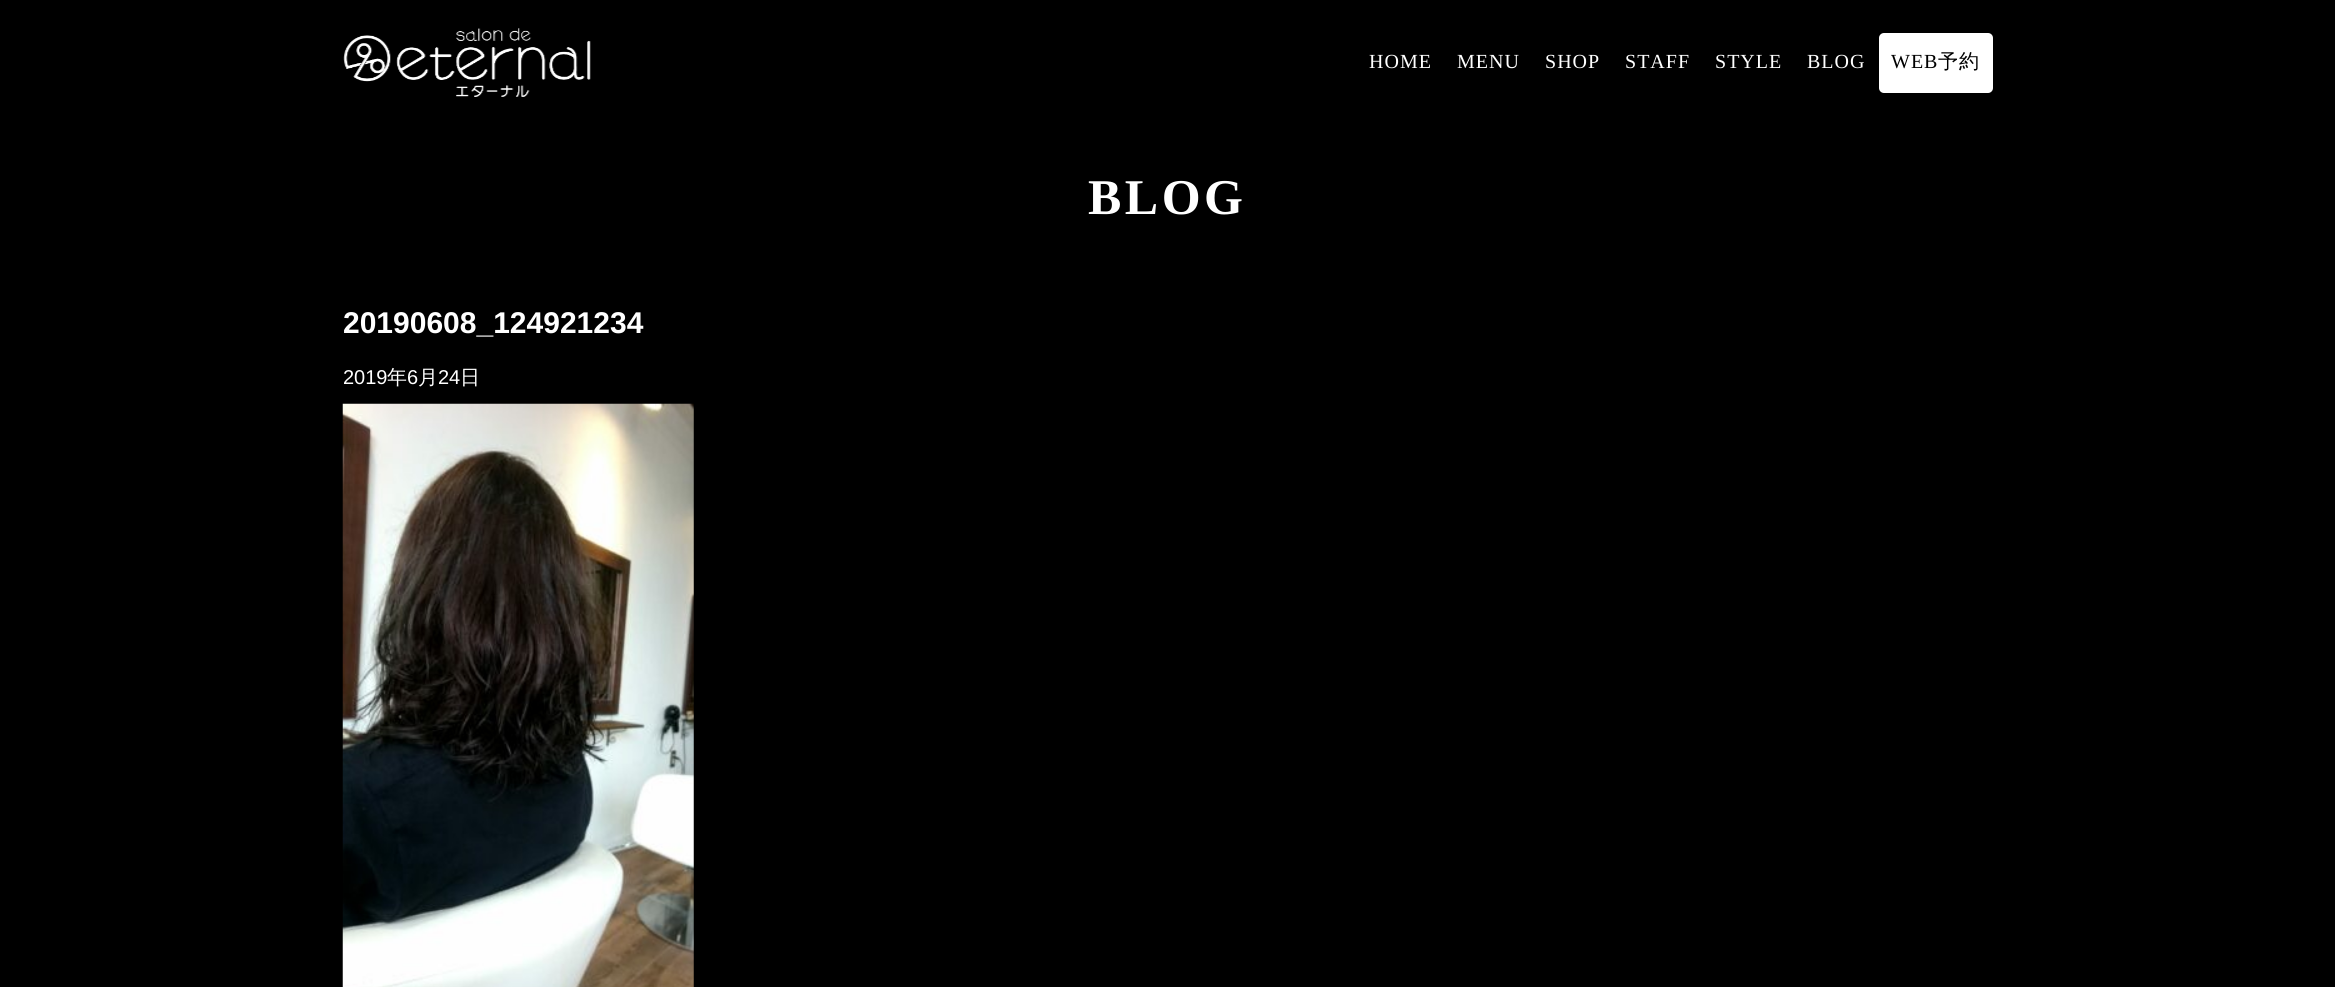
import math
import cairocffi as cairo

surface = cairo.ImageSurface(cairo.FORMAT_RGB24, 2335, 987)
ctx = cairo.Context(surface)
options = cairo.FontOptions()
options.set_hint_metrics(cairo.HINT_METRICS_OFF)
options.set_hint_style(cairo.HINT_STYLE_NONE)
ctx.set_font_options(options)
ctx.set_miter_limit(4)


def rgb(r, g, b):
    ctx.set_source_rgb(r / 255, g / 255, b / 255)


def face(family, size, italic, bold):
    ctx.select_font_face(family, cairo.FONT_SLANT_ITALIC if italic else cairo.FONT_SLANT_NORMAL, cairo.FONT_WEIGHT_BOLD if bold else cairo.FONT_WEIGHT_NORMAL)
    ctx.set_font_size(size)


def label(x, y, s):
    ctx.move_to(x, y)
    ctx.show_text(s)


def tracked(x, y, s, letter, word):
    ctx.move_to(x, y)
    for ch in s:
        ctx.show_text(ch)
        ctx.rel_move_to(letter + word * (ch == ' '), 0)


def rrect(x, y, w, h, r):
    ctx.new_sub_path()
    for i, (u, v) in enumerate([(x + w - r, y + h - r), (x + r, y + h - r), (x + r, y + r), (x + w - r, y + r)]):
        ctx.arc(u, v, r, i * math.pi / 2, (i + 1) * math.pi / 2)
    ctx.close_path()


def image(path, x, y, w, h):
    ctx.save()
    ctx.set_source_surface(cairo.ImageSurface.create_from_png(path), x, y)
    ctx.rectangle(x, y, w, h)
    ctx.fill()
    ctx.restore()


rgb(0, 0, 0)
ctx.paint()
image('image0.png', 343, 28, 248, 69)
face('Liberation Serif', 20, 0, 0)
rgb(255, 255, 255)
tracked(1369, 68, 'HOME', 1, 0)
tracked(1457, 68, 'MENU', 1, 0)
tracked(1545, 68, 'SHOP', 1, 0)
tracked(1625, 68, 'STAFF', 1, 0)
tracked(1715, 68, 'STYLE', 1, 0)
tracked(1807, 68, 'BLOG', 1, 0)
rrect(1879, 33, 114, 60, 5)
ctx.fill()
rgb(0, 0, 0)
tracked(1891, 68, 'WEB', 1, 0)
face('WenQuanYi Zen Hei Medium', 20, 0, 0)
tracked(1938, 68, '予約', 1, 0)
face('Liberation Serif', 50, 0, 1)
rgb(255, 255, 255)
tracked(1088, 214, 'BLOG', 3.5, 0)
face('Liberation Sans', 30, 0, 1)
label(343, 333, '20190608_124921234')
face('Liberation Sans', 20, 0, 0)
label(343, 384, '2019')
face('WenQuanYi Zen Hei Medium', 20, 0, 0)
label(387, 384, '年')
face('Liberation Sans', 20, 0, 0)
label(407, 384, '6')
face('WenQuanYi Zen Hei Medium', 20, 0, 0)
label(418, 384, '月')
face('Liberation Sans', 20, 0, 0)
label(438, 384, '24')
face('WenQuanYi Zen Hei Medium', 20, 0, 0)
label(460, 384, '日')
image('image1.png', 342, 403, 352, 584)
surface.write_to_png('render.png')
